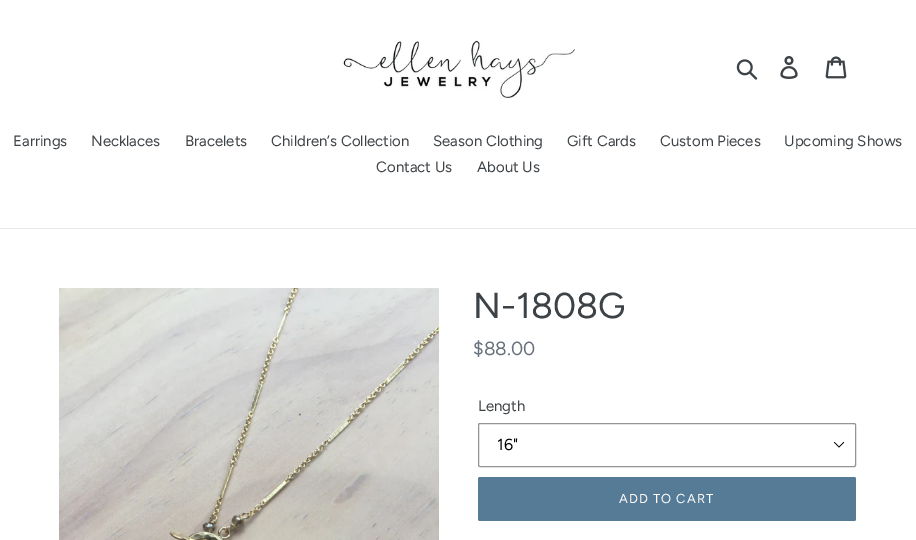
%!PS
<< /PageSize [916 540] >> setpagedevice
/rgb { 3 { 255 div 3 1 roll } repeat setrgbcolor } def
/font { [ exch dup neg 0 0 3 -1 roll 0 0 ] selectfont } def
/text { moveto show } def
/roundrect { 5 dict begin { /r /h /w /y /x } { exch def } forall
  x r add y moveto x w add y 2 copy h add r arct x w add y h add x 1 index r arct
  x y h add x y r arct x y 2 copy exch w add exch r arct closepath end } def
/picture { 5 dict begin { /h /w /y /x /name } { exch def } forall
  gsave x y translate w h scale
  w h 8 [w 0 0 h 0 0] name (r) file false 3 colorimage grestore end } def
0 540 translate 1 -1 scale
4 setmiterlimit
255 255 255 rgb
0 0 916 540 rectfill
(img_01.rgb) 342 40 233 59 picture
(img_02.rgb) 736 59 22 21 picture
(img_03.rgb) 780 56 18 23 picture
(img_04.rgb) 825 56 22 23 picture
232 233 235 rgb
0 228 916 1 rectfill
(img_05.rgb) 59 288 380 252 picture
(img_06.rgb) 833 441 12 7 picture
148 148 148 rgb
478.5 423.5 377 43 1.5 roundrect stroke
85 123 151 rgb
478 477 378 44 2 roundrect fill
/Figtree-Regular 15 font
61 66 70 rgb
(Earrings) 13 146 text
(Necklaces) 91 146 text
(Bracelets) 185 146 text
(Children’s Collection) 271 146 text
(Season Clothing) 433 146 text
(Gift Cards) 567 146 text
(Custom Pieces) 660 146 text
(Upcoming Shows) 784 146 text
(Contact Us) 376 172 text
(About Us) 477 172 text
/Figtree-Regular 36 font
(N-1808G) 473 318 text
/Figtree-Regular 19 font
105 114 123 rgb
($88.00) 473 355 text
/Figtree-Regular 15 font
61 66 70 rgb
(Length) 478 411 text
/Figtree-Regular 16 font
0 0 0 rgb
(16") 497 450 text
/Figtree-Regular 13 font
255 255 255 rgb
619 503 moveto 1 0 (ADD TO CART) ashow
showpage
